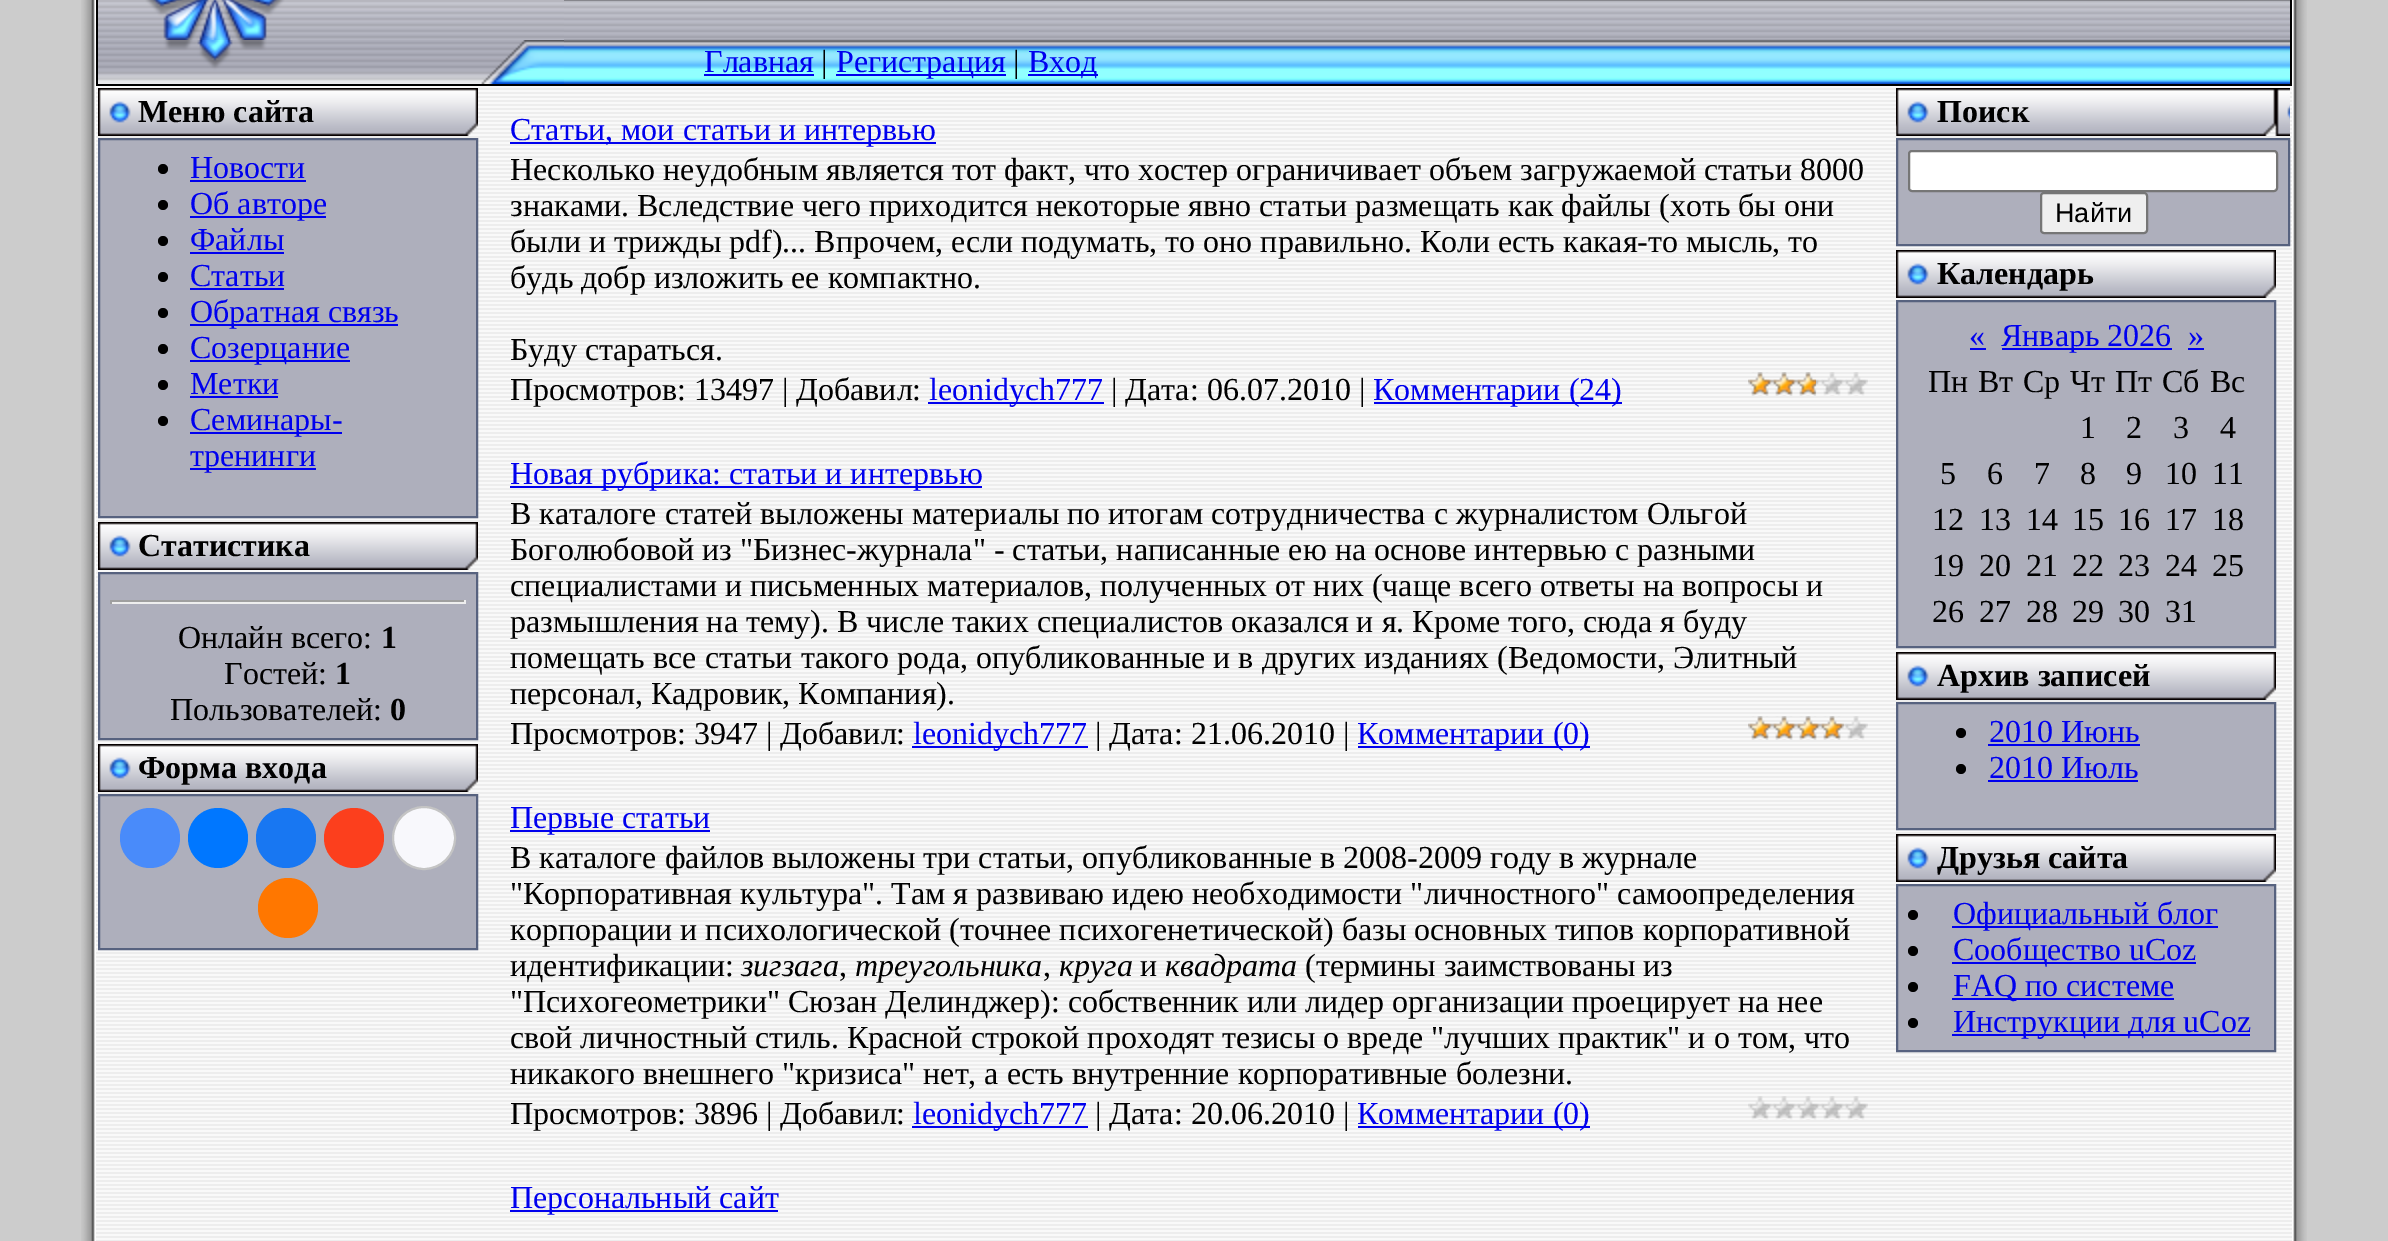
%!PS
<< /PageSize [2388 1241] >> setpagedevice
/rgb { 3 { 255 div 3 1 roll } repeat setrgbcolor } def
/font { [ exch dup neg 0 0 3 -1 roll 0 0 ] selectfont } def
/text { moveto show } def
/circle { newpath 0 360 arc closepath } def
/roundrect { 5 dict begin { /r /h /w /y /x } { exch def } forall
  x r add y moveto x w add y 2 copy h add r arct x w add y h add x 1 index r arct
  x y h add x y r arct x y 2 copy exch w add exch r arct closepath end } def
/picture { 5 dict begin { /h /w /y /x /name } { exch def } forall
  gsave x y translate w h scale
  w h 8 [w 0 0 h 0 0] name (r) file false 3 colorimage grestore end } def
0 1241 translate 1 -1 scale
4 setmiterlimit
204 204 204 rgb
0 0 2388 1241 rectfill
(img_01.rgb) 81 0 15 1241 picture
(img_02.rgb) 564 0 1726 84 picture
0 0 0 rgb
2 setlinewidth
97 -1 2194 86 rectstroke
(img_03.rgb) 98 0 466 40 picture
(img_04.rgb) 98 40 466 44 picture
0 0 238 rgb
704 74 110 2 rectfill
836 74 170 2 rectfill
1028 74 70 2 rectfill
(img_05.rgb) 96 86 2196 1155 picture
(img_06.rgb) 98 88 380 48 picture
174 175 188 rgb
99 139 moveto 378 0 rlineto 0 378 rlineto -378 0 rlineto closepath gsave fill grestore
87 98 127 rgb
stroke
0 0 0 rgb
163 169 5 circle fill
0 0 238 rgb
190 180 116 2 rectfill
0 0 0 rgb
163 205 5 circle fill
0 0 238 rgb
190 216 136 2 rectfill
0 0 0 rgb
163 241 5 circle fill
0 0 238 rgb
190 252 94 2 rectfill
0 0 0 rgb
163 277 5 circle fill
0 0 238 rgb
190 288 94 2 rectfill
0 0 0 rgb
163 313 5 circle fill
0 0 238 rgb
190 324 208 2 rectfill
0 0 0 rgb
163 349 5 circle fill
0 0 238 rgb
190 360 160 2 rectfill
0 0 0 rgb
163 385 5 circle fill
0 0 238 rgb
190 396 88 2 rectfill
0 0 0 rgb
163 421 5 circle fill
0 0 238 rgb
190 432 152 2 rectfill
190 468 126 2 rectfill
(img_07.rgb) 98 522 380 48 picture
174 175 188 rgb
99 573 moveto 378 0 rlineto 0 166 rlineto -378 0 rlineto closepath gsave fill grestore
87 98 127 rgb
stroke
159 159 159 rgb
110 600 356 2 rectfill
238 238 238 rgb
464 600 2 4 rectfill
110 602 356 2 rectfill
159 159 159 rgb
110 600 2 4 rectfill
(img_06.rgb) 98 744 380 48 picture
174 175 188 rgb
99 795 moveto 378 0 rlineto 0 154 rlineto -378 0 rlineto closepath gsave fill grestore
87 98 127 rgb
stroke
73 139 250 rgb
150 838 30 circle fill
0 119 255 rgb
218 838 30 circle fill
24 119 242 rgb
286 838 30 circle fill
252 63 29 rgb
354 838 30 circle fill
248 248 252 rgb
424 838 31 circle gsave fill grestore
196 196 196 rgb
stroke
255 119 0 rgb
288 908 30 circle fill
0 0 238 rgb
510 142 426 2 rectfill
928 402 176 2 rectfill
1374 402 248 2 rectfill
(img_08.rgb) 1748 372 120 24 picture
(img_09.rgb) 1748 372 68 24 picture
510 486 472 2 rectfill
912 746 176 2 rectfill
1358 746 232 2 rectfill
(img_08.rgb) 1748 716 120 24 picture
(img_10.rgb) 1748 716 96 24 picture
510 830 200 2 rectfill
912 1126 176 2 rectfill
1358 1126 232 2 rectfill
(img_08.rgb) 1748 1096 120 24 picture
510 1210 268 2 rectfill
(img_11.rgb) 1896 88 394 48 picture
174 175 188 rgb
1897 139 moveto 392 0 rlineto 0 106 rlineto -392 0 rlineto closepath gsave fill grestore
87 98 127 rgb
stroke
255 255 255 rgb
1909 151 368 40 3 roundrect gsave fill grestore
118 118 118 rgb
stroke
239 239 239 rgb
2041 193 106 40 3 roundrect gsave fill grestore
118 118 118 rgb
stroke
(img_07.rgb) 1896 250 380 48 picture
174 175 188 rgb
1897 301 moveto 378 0 rlineto 0 346 rlineto -378 0 rlineto closepath gsave fill grestore
87 98 127 rgb
stroke
0 0 238 rgb
1970 348 16 2 rectfill
2002 348 170 2 rectfill
2188 348 16 2 rectfill
(img_06.rgb) 1896 652 380 48 picture
174 175 188 rgb
1897 703 moveto 378 0 rlineto 0 126 rlineto -378 0 rlineto closepath gsave fill grestore
87 98 127 rgb
stroke
0 0 0 rgb
1961 733 5 circle fill
0 0 238 rgb
1988 744 152 2 rectfill
0 0 0 rgb
1961 769 5 circle fill
0 0 238 rgb
1988 780 150 2 rectfill
(img_07.rgb) 1896 834 380 48 picture
174 175 188 rgb
1897 885 moveto 378 0 rlineto 0 166 rlineto -378 0 rlineto closepath gsave fill grestore
87 98 127 rgb
stroke
0 0 0 rgb
1913 915 5 circle fill
0 0 238 rgb
1952 926 266 2 rectfill
0 0 0 rgb
1913 951 5 circle fill
0 0 238 rgb
1952 962 244 2 rectfill
0 0 0 rgb
1913 987 5 circle fill
0 0 238 rgb
1952 998 222 2 rectfill
0 0 0 rgb
1913 1023 5 circle fill
0 0 238 rgb
1952 1034 298 2 rectfill
(img_12.rgb) 2292 0 15 1241 picture
/LiberationSerif-Regular 32 font
(Главная) 704 72 text
0 0 0 rgb
(|) 821 72 text
0 0 238 rgb
(Регистрация) 836 72 text
0 0 0 rgb
(|) 1013 72 text
0 0 238 rgb
(Вход) 1028 72 text
/LiberationSerif-Bold 32 font
0 0 0 rgb
(Меню сайта) 138 122 text
/LiberationSerif-Regular 32 font
0 0 238 rgb
(Новости) 190 178 text
(Об авторе) 190 214 text
(Файлы) 190 250 text
(Cтатьи) 190 286 text
(Обратная связь) 190 322 text
(Созерцание) 190 358 text
(Метки) 190 394 text
(Семинары-) 190 430 text
(тренинги) 190 466 text
/LiberationSerif-Bold 32 font
0 0 0 rgb
(Статистика) 138 556 text
/LiberationSerif-Regular 32 font
(Онлайн всего:) 178 648 text
/LiberationSerif-Bold 32 font
(1) 381 648 text
/LiberationSerif-Regular 32 font
(Гостей:) 224 684 text
/LiberationSerif-Bold 32 font
(1) 335 684 text
/LiberationSerif-Regular 32 font
(Пользователей:) 170 720 text
/LiberationSerif-Bold 32 font
(0) 390 720 text
(Форма входа) 138 778 text
/LiberationSerif-Regular 32 font
0 0 238 rgb
(Статьи, мои статьи и интервью) 510 140 text
0 0 0 rgb
(Несколько неудобным является тот факт, что хостер ограничивает объем загружаемой статьи 8000) 510 180 text
(знаками. Вследствие чего приходится некоторые явно статьи размещать как файлы \(хоть бы они) 510 216 text
(были и трижды pdf\)... Впрочем, если подумать, то оно правильно. Коли есть какая-то мысль, то) 510 252 text
(будь добр изложить ее компактно.) 510 288 text
(Буду стараться.) 510 360 text
(Просмотров: 13497 | Добавил:) 510 400 text
0 0 238 rgb
(leonidych777) 929 400 text
0 0 0 rgb
(| Дата: 06.07.2010 |) 1111 400 text
0 0 238 rgb
(Комментарии \(24\)) 1373 400 text
(Новая рубрика: статьи и интервью) 510 484 text
0 0 0 rgb
(В каталоге статей выложены материалы по итогам сотрудничества с журналистом Ольгой) 510 524 text
(Боголюбовой из "Бизнес-журнала" - статьи, написанные ею на основе интервью с разными) 510 560 text
(специалистами и письменных материалов, полученных от них \(чаще всего ответы на вопросы и) 510 596 text
(размышления на тему\). В числе таких специалистов оказался и я. Кроме того, сюда я буду) 510 632 text
(помещать все статьи такого рода, опубликованные и в других изданиях \(Ведомости, Элитный) 510 668 text
(персонал, Кадровик, Компания\).) 510 704 text
(Просмотров: 3947 | Добавил:) 510 744 text
0 0 238 rgb
(leonidych777) 913 744 text
0 0 0 rgb
(| Дата: 21.06.2010 |) 1095 744 text
0 0 238 rgb
(Комментарии \(0\)) 1357 744 text
(Первые статьи) 510 828 text
0 0 0 rgb
(В каталоге файлов выложены три статьи, опубликованные в 2008-2009 году в журнале) 510 868 text
("Корпоративная культура". Там я развиваю идею необходимости "личностного" самоопределения) 510 904 text
(корпорации и психологической \(точнее психогенетической\) базы основных типов корпоративной) 510 940 text
(идентификации:) 510 976 text
/LiberationSerif-Italic 32 font
(зигзага) 741 976 text
/LiberationSerif-Regular 32 font
(,) 839 976 text
/LiberationSerif-Italic 32 font
(треугольника) 855 976 text
/LiberationSerif-Regular 32 font
(,) 1043 976 text
/LiberationSerif-Italic 32 font
(круга) 1059 976 text
/LiberationSerif-Regular 32 font
(и) 1140 976 text
/LiberationSerif-Italic 32 font
(квадрата) 1165 976 text
/LiberationSerif-Regular 32 font
(\(термины заимствованы из) 1305 976 text
("Психогеометрики" Сюзан Делинджер\): собственник или лидер организации проецирует на нее) 510 1012 text
(свой личностный стиль. Красной строкой проходят тезисы о вреде "лучших практик" и о том, что) 510 1048 text
(никакого внешнего "кризиса" нет, а есть внутренние корпоративные болезни.) 510 1084 text
(Просмотров: 3896 | Добавил:) 510 1124 text
0 0 238 rgb
(leonidych777) 913 1124 text
0 0 0 rgb
(| Дата: 20.06.2010 |) 1095 1124 text
0 0 238 rgb
(Комментарии \(0\)) 1357 1124 text
(Персональный сайт) 510 1208 text
/LiberationSerif-Bold 32 font
0 0 0 rgb
(Поиск) 1937 122 text
/LiberationSans-Regular 27 font
(Найти) 2055 222 text
/LiberationSerif-Bold 32 font
(Календарь) 1937 284 text
/LiberationSerif-Regular 32 font
0 0 238 rgb
(«) 1969 346 text
(Январь 2026) 2001 346 text
(») 2188 346 text
0 0 0 rgb
(Пн) 1928 392 text
(Вт) 1978 392 text
(Ср) 2023 392 text
(Чт) 2070 392 text
(Пт) 2115 392 text
(Сб) 2162 392 text
(Вс) 2210 392 text
(1) 2080 438 text
(2) 2126 438 text
(3) 2173 438 text
(4) 2220 438 text
(5) 1940 484 text
(6) 1987 484 text
(7) 2034 484 text
(8) 2080 484 text
(9) 2126 484 text
(10) 2165 484 text
(11) 2212 484 text
(12) 1932 530 text
(13) 1979 530 text
(14) 2026 530 text
(15) 2072 530 text
(16) 2118 530 text
(17) 2165 530 text
(18) 2212 530 text
(19) 1932 576 text
(20) 1979 576 text
(21) 2026 576 text
(22) 2072 576 text
(23) 2118 576 text
(24) 2165 576 text
(25) 2212 576 text
(26) 1932 622 text
(27) 1979 622 text
(28) 2026 622 text
(29) 2072 622 text
(30) 2118 622 text
(31) 2165 622 text
/LiberationSerif-Bold 32 font
(Архив записей) 1937 686 text
/LiberationSerif-Regular 32 font
0 0 238 rgb
(2010 Июнь) 1989 742 text
(2010 Июль) 1989 778 text
/LiberationSerif-Bold 32 font
0 0 0 rgb
(Друзья сайта) 1937 868 text
/LiberationSerif-Regular 32 font
0 0 238 rgb
(Официальный блог) 1953 924 text
(Сообщество uCoz) 1953 960 text
(FAQ по системе) 1953 996 text
(Инструкции для uCoz) 1953 1032 text
showpage
